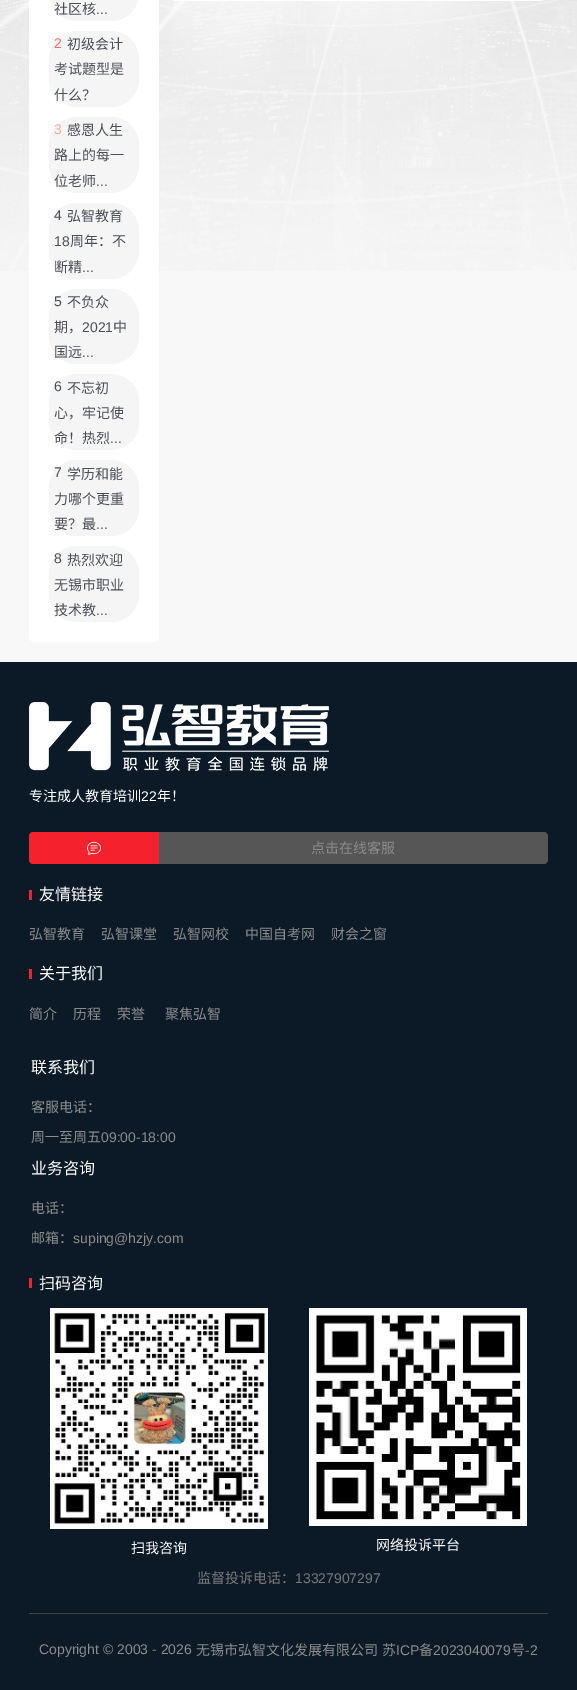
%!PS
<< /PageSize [577 1690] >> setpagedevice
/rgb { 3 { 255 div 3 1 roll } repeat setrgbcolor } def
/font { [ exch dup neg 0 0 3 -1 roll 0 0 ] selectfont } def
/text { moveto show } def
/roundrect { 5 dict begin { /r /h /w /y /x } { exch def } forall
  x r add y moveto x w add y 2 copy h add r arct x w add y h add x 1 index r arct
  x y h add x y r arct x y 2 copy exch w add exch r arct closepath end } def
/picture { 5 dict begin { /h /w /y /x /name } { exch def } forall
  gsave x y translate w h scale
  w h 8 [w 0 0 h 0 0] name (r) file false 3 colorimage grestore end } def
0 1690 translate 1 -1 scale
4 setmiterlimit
248 248 248 rgb
0 0 577 1690 rectfill
(img_01.rgb) 0 0 577 271 picture
255 255 255 rgb
169 -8 379 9 8 roundrect fill
29 -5 130 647 5 roundrect fill
245 245 245 rgb
49 -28 90 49 28 roundrect fill
49 31 90 76 28 roundrect fill
49 117 90 76 28 roundrect fill
49 203 90 76 28 roundrect fill
49 289 90 75 28 roundrect fill
49 374 90 76 28 roundrect fill
49 460 90 76 28 roundrect fill
49 546 90 76 28 roundrect fill
12 26 40 rgb
0 662 577 1028 rectfill
(img_02.rgb) 29 702 300 69 picture
245 34 45 rgb
33 832 moveto 126 0 rlineto 0 32 rlineto -126 0 rlineto -2 0 -4 -2 -4 -4 rcurveto 0 -24 rlineto 0 -2 2 -4 4 -4 rcurveto closepath fill
(img_03.rgb) 87 841 14 14 picture
86 86 86 rgb
159 832 moveto 385 0 rlineto 2 0 4 2 4 4 rcurveto 0 24 rlineto 0 2 -2 4 -4 4 rcurveto -385 0 rlineto closepath fill
245 34 45 rgb
29 890 3 10 rectfill
29 969 3 10 rectfill
29 1278 3 10 rectfill
(img_04.rgb) 50 1308 218 221 picture
(img_05.rgb) 309 1308 218 218 picture
67 67 67 rgb
29 1613 519 1 rectfill
/NotoSansCJKSC-Regular 14 font
74 78 87 rgb
(社区核) 54 14 text
/LiberationSans-Regular 14 font
(...) 96 14 text
255 107 107 rgb
(2) 54 48 text
/NotoSansCJKSC-Regular 14 font
74 78 87 rgb
(初级会计) 67 49 text
(考试题型是) 54 74 text
(什么？) 54 100 text
/LiberationSans-Regular 14 font
255 166 166 rgb
(3) 54 134 text
/NotoSansCJKSC-Regular 14 font
74 78 87 rgb
(感恩人生) 67 135 text
(路上的每一) 54 160 text
(位老师) 54 186 text
/LiberationSans-Regular 14 font
(...) 96 186 text
(4) 54 220 text
/NotoSansCJKSC-Regular 14 font
(弘智教育) 67 221 text
/LiberationSans-Regular 14 font
(18) 54 246 text
/NotoSansCJKSC-Regular 14 font
(周年：不) 70 246 text
(断精) 54 272 text
/LiberationSans-Regular 14 font
(...) 82 272 text
(5) 54 306 text
/NotoSansCJKSC-Regular 14 font
(不负众) 67 307 text
(期，) 54 332 text
/LiberationSans-Regular 14 font
(2021) 82 332 text
/NotoSansCJKSC-Regular 14 font
(中) 113 332 text
(国远) 54 357 text
/LiberationSans-Regular 14 font
(...) 82 357 text
(6) 54 391 text
/NotoSansCJKSC-Regular 14 font
(不忘初) 67 393 text
(心，牢记使) 54 418 text
(命！热烈) 54 443 text
/LiberationSans-Regular 14 font
(...) 110 443 text
(7) 54 477 text
/NotoSansCJKSC-Regular 14 font
(学历和能) 67 479 text
(力哪个更重) 54 504 text
(要？最) 54 529 text
/LiberationSans-Regular 14 font
(...) 96 529 text
(8) 54 563 text
/NotoSansCJKSC-Regular 14 font
(热烈欢迎) 67 565 text
(无锡市职业) 54 590 text
(技术教) 54 615 text
/LiberationSans-Regular 14 font
(...) 96 615 text
/NotoSansCJKSC-Regular 14 font
255 255 255 rgb
(专注成人教育培训) 29 801 text
/LiberationSans-Regular 14 font
(22) 141 801 text
/NotoSansCJKSC-Regular 14 font
(年！) 157 801 text
140 140 140 rgb
(点击在线客服) 311 853 text
/NotoSansCJKSC-Regular 16 font
255 255 255 rgb
(友情链接) 39 900 text
/NotoSansCJKSC-Regular 14 font
140 140 140 rgb
(弘智教育) 29 939 text
(弘智课堂) 101 939 text
(弘智网校) 173 939 text
(中国自考网) 245 939 text
(财会之窗) 331 939 text
/NotoSansCJKSC-Regular 16 font
255 255 255 rgb
(关于我们) 39 979 text
/NotoSansCJKSC-Regular 14 font
140 140 140 rgb
(简介) 29 1019 text
(历程) 73 1019 text
(荣誉) 117 1019 text
(聚焦弘智) 165 1019 text
/NotoSansCJKSC-Regular 16 font
255 255 255 rgb
(联系我们) 31 1073 text
/NotoSansCJKSC-Regular 14 font
140 140 140 rgb
(客服电话：) 31 1112 text
(周一至周五) 31 1142 text
/LiberationSans-Regular 14 font
(09:00-18:00) 101 1142 text
/NotoSansCJKSC-Regular 16 font
255 255 255 rgb
(业务咨询) 31 1174 text
/NotoSansCJKSC-Regular 14 font
140 140 140 rgb
(电话：) 31 1213 text
(邮箱：) 31 1243 text
/LiberationSans-Regular 14 font
(suping@hzjy.com) 73 1243 text
/NotoSansCJKSC-Regular 16 font
255 255 255 rgb
(扫码咨询) 39 1289 text
/NotoSansCJKSC-Regular 14 font
(扫我咨询) 131 1553 text
(网络投诉平台) 376 1550 text
120 120 120 rgb
(监督投诉电话：) 197 1583 text
/LiberationSans-Regular 14 font
(13327907297) 295 1583 text
140 140 140 rgb
(Copyright © 2003 - 2026) 39 1654 text
/NotoSansCJKSC-Regular 14 font
(无锡市弘智文化发展有限公司) 196 1655 text
(苏) 382 1655 text
/LiberationSans-Regular 14 font
(ICP) 396 1655 text
/NotoSansCJKSC-Regular 14 font
(备) 419 1655 text
/LiberationSans-Regular 14 font
(2023040079) 433 1655 text
/NotoSansCJKSC-Regular 14 font
(号) 511 1655 text
/LiberationSans-Regular 14 font
(-2) 525 1655 text
showpage
